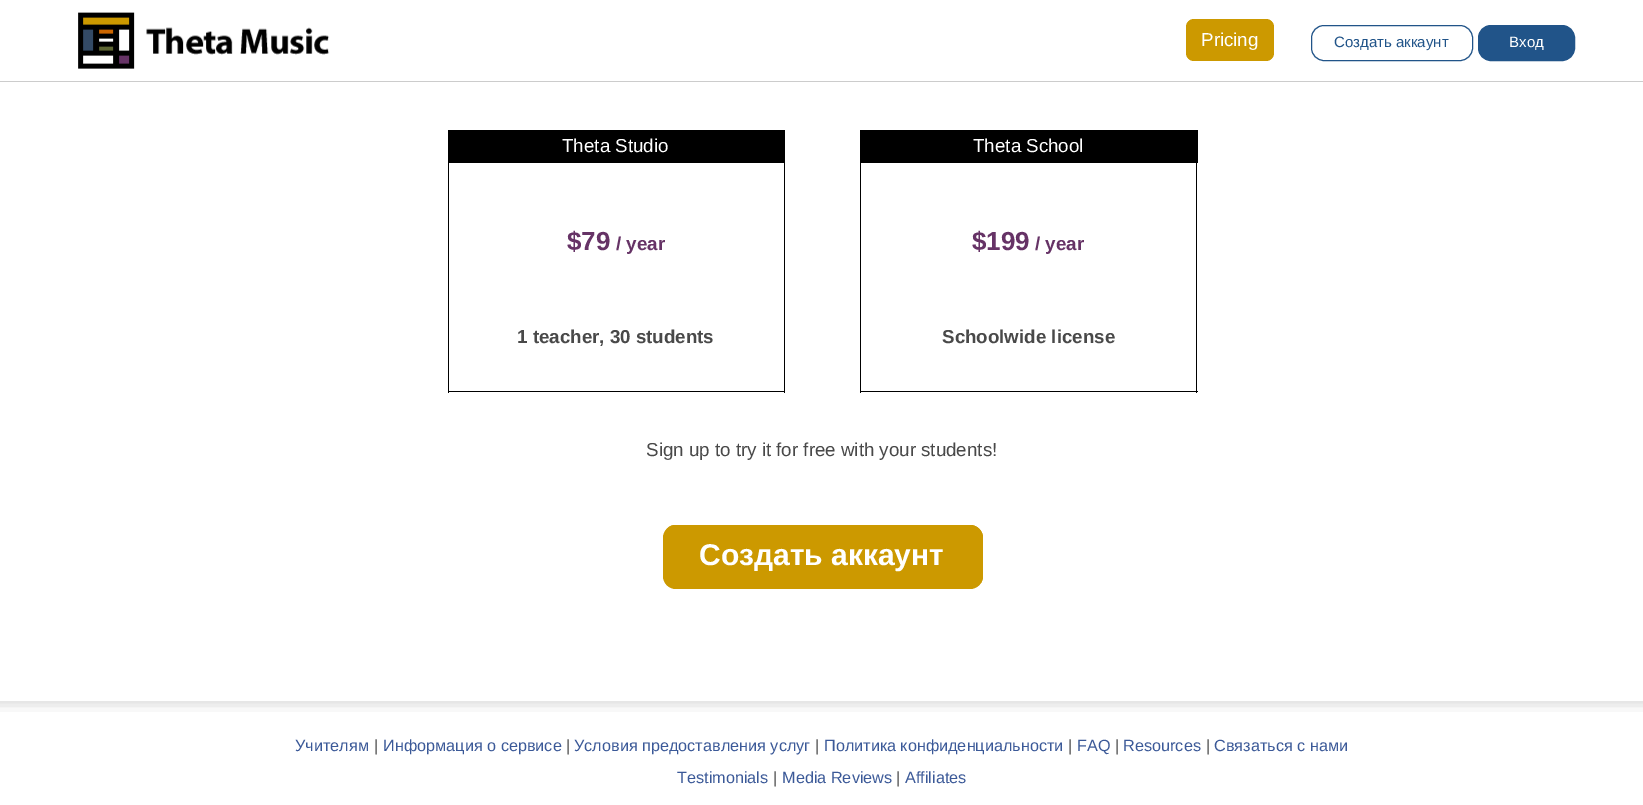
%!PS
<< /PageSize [1643 805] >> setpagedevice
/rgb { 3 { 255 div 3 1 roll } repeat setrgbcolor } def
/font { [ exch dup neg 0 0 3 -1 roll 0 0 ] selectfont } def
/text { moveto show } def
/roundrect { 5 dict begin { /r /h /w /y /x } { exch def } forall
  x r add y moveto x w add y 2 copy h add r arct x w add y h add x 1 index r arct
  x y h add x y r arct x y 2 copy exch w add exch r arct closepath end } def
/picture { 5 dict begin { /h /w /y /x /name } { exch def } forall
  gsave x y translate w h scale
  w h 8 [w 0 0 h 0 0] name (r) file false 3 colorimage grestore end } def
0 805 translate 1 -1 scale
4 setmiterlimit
255 255 255 rgb
0 0 1643 805 rectfill
204 204 204 rgb
0 81 1643 1 rectfill
(img_01.rgb) 78 12 252 57 picture
204 153 0 rgb
1186 19 88 42 8 roundrect fill
33 84 137 rgb
1311.5 25.5 161 35 12.5 roundrect stroke
1478.5 25.5 96 35 12.5 roundrect gsave fill grestore
stroke
0 0 0 rgb
448 130 337 33 rectfill
784 163 1 230 rectfill
448 391 337 1 rectfill
448 163 1 230 rectfill
860 130 338 33 rectfill
1196 163 1 230 rectfill
860 391 338 1 rectfill
860 163 1 230 rectfill
204 153 0 rgb
663 525 320 64 13 roundrect fill
674 526 moveto 296 0 rlineto 7 0 12 6 12 12 rcurveto 0 40 rlineto -1 5 rlineto 1 -2 2 -5 2 -7 rcurveto 0 -38 rlineto 0 -7 -6 -13 -13 -13 rcurveto -294 0 rlineto -4 0 -7 1 -9 4 rcurveto 2 -2 4 -3 7 -3 rcurveto closepath fill
(img_02.rgb) 0 701 1643 11 picture
/LiberationSans-Regular 18.75 font
255 255 255 rgb
(Pricing) 1201 46 text
/LiberationSans-Regular 15 font
33 84 137 rgb
(Создать аккаунт) 1334 47 text
255 255 255 rgb
(Вход) 1509 47 text
/LiberationSans-Regular 18.75 font
(Theta Studio) 562 152 text
/LiberationSans-Bold 26 font
102 51 102 rgb
($79) 567 250 text
/LiberationSans-Bold 18.75 font
(/ year) 616 250 text
73 73 73 rgb
(1 teacher, 30 students) 517 343 text
/LiberationSans-Regular 18.75 font
255 255 255 rgb
(Theta School) 973 152 text
/LiberationSans-Bold 26 font
102 51 102 rgb
($199) 972 250 text
/LiberationSans-Bold 18.75 font
(/ year) 1035 250 text
73 73 73 rgb
(Schoolwide license) 942 343 text
/LiberationSans-Regular 18.75 font
(Sign up to try it for free with your students!) 646 456 text
/LiberationSans-Bold 30 font
255 255 255 rgb
(Создать аккаунт) 699 565 text
/LiberationSans-Regular 16.25 font
59 89 152 rgb
(Учителям) 295 751 text
73 73 73 rgb
(|) 374 751 text
59 89 152 rgb
(Информация о сервисе) 383 751 text
73 73 73 rgb
(|) 566 751 text
59 89 152 rgb
(Условия предоставления услуг) 574 751 text
73 73 73 rgb
(|) 815 751 text
59 89 152 rgb
(Политика конфиденциальности) 824 751 text
73 73 73 rgb
(|) 1068 751 text
59 89 152 rgb
(FAQ) 1077 751 text
73 73 73 rgb
(|) 1115 751 text
59 89 152 rgb
(Resources) 1123 751 text
73 73 73 rgb
(|) 1206 751 text
59 89 152 rgb
(Связаться с нами) 1214 751 text
(Testimonials) 677 783 text
73 73 73 rgb
(|) 773 783 text
59 89 152 rgb
(Media Reviews) 782 783 text
73 73 73 rgb
(|) 896 783 text
59 89 152 rgb
(Affiliates) 905 783 text
showpage
